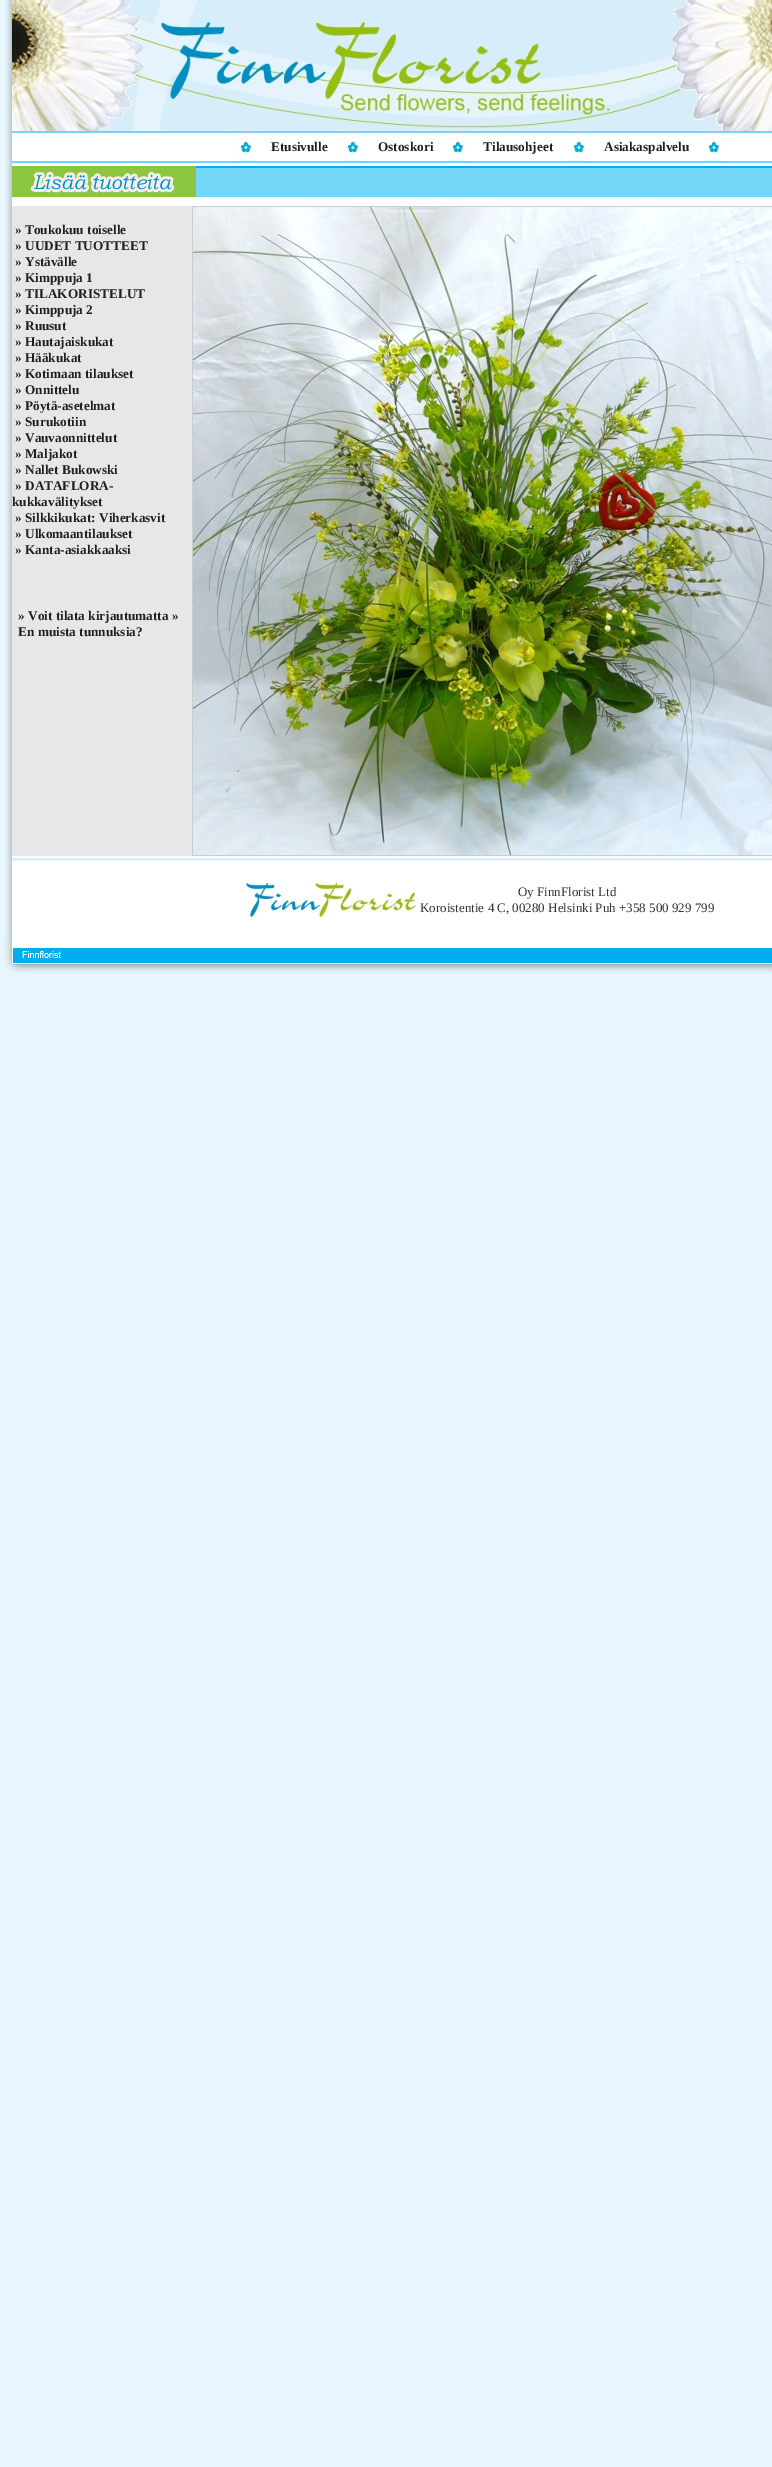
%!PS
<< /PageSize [772 2467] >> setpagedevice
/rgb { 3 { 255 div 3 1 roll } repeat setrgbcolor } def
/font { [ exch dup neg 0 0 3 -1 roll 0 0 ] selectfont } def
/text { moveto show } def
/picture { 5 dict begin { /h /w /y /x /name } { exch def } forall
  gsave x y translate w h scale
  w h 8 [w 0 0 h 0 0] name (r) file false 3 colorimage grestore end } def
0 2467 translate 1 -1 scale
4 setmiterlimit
232 247 254 rgb
0 0 772 2467 rectfill
(img_01.rgb) 5 0 7 935 picture
(img_02.rgb) 12 0 760 131 picture
(img_03.rgb) 12 131 760 32 picture
(img_04.rgb) 236 132 20 30 picture
(img_04.rgb) 343 132 20 30 picture
(img_04.rgb) 448 132 20 30 picture
(img_04.rgb) 569 132 20 30 picture
(img_04.rgb) 704 132 20 30 picture
255 255 255 rgb
12 163 760 3 rectfill
(img_05.rgb) 12 166 760 40 picture
231 231 233 rgb
12 206 180 650 rectfill
204 204 204 rgb
192 206 580 1 rectfill
192 855 580 1 rectfill
192 206 1 650 rectfill
(img_06.rgb) 193 207 579 648 picture
255 255 255 rgb
12 856 760 79 rectfill
(img_07.rgb) 12 858 760 4 picture
(img_08.rgb) 246 883 170 34 picture
(img_09.rgb) 2 935 770 39 picture
/LiberationSerif-Bold 13.25 font
31 31 31 rgb
(Etusivulle) 271 151 text
(Ostoskori) 378 151 text
(Tilausohjeet) 483 151 text
(Asiakaspalvelu) 604 151 text
255 255 255 rgb
689 150 1 1 rectfill
31 31 31 rgb
(» Toukokuu toiselle) 15 234 text
(» UUDET TUOTTEET) 15 250 text
(» Ystävälle) 15 266 text
(» Kimppuja 1) 15 282 text
(» TILAKORISTELUT) 15 298 text
(» Kimppuja 2) 15 314 text
(» Ruusut) 15 330 text
(» Hautajaiskukat) 15 346 text
(» Hääkukat) 15 362 text
(» Kotimaan tilaukset) 15 378 text
(» Onnittelu) 15 394 text
(» Pöytä-asetelmat) 15 410 text
(» Surukotiin) 15 426 text
(» Vauvaonnittelut) 15 442 text
(» Maljakot) 15 458 text
(» Nallet Bukowski) 15 474 text
(» DATAFLORA-) 15 490 text
(kukkavälitykset) 12 506 text
(» Silkkikukat: Viherkasvit) 15 522 text
(» Ulkomaantilaukset) 15 538 text
(» Kanta-asiakkaaksi) 15 554 text
(» Voit tilata kirjautumatta ») 18 620 text
(En muista tunnuksia?) 18 636 text
/LiberationSerif-Regular 13 font
51 51 51 rgb
(Oy FinnFlorist Ltd) 518 896 text
(Koroistentie 4 C, 00280 Helsinki Puh +358 500 929 799) 420 912 text
showpage
